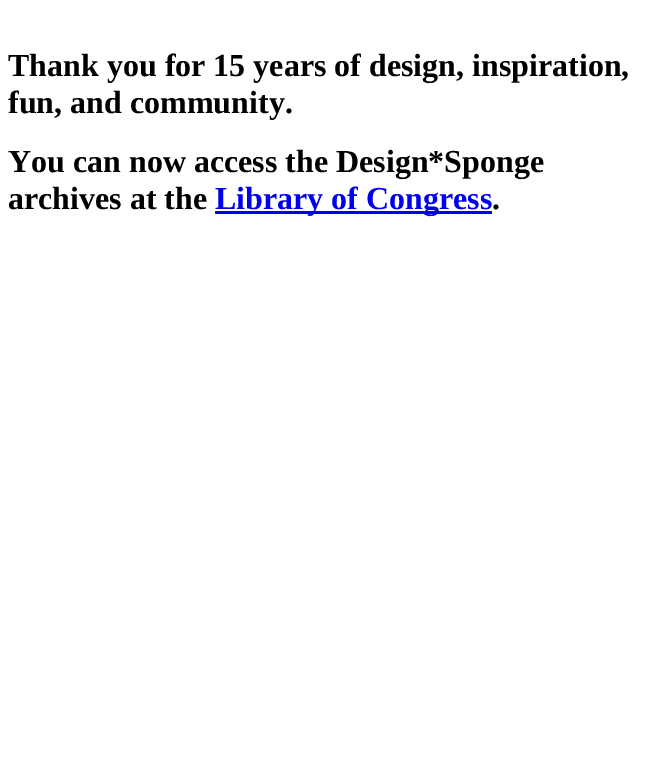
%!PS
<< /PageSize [652 769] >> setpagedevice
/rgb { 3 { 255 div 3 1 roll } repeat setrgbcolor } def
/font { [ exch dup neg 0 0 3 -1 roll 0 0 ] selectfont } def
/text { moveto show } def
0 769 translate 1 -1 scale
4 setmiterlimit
255 255 255 rgb
0 0 652 769 rectfill
0 0 238 rgb
215 211 277 3 rectfill
/LiberationSerif-Bold 32 font
0 0 0 rgb
(Thank you for 15 years of design, inspiration,) 8 76 text
(fun, and community.) 8 113 text
(You can now access the Design*Sponge) 8 172 text
(archives at the) 8 209 text
0 0 238 rgb
(Library of Congress) 215 209 text
0 0 0 rgb
(.) 492 209 text
showpage
